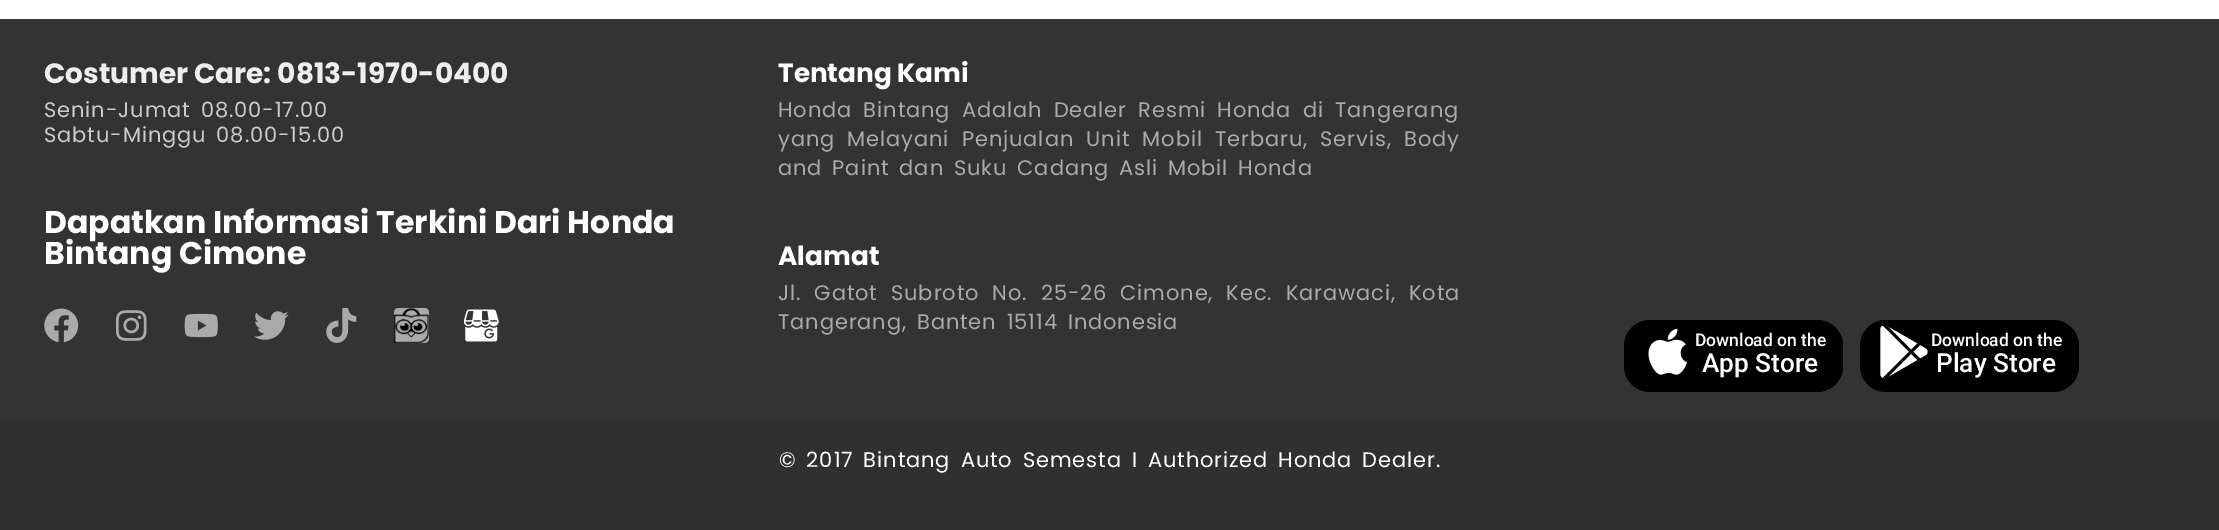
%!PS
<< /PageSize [2219 530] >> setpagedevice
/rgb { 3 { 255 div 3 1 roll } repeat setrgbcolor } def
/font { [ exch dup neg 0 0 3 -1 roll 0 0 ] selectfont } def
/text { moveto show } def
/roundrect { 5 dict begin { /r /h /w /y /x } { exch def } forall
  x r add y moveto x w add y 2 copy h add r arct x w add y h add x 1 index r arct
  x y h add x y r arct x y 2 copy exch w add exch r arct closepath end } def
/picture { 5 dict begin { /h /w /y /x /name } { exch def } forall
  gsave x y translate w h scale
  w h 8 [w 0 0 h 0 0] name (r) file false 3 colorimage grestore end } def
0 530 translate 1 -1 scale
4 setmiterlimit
255 255 255 rgb
0 0 2219 530 rectfill
51 51 51 rgb
0 19 2219 399 rectfill
(img_01.rgb) 44 308 35 35 picture
(img_02.rgb) 115 310 32 31 picture
(img_03.rgb) 184 313 34 25 picture
(img_04.rgb) 254 311 35 29 picture
(img_05.rgb) 326 308 31 35 picture
170 170 170 rgb
394 308 35 35 4 roundrect fill
(img_06.rgb) 394 308 35 35 picture
(img_07.rgb) 464 309 35 33 picture
0 0 0 rgb
1624 320 219 72 26 roundrect fill
(img_08.rgb) 1648 328 39 47 picture
1860 320 219 72 26 roundrect fill
(img_09.rgb) 1880 326 48 52 picture
48 48 48 rgb
0 418 2219 112 rectfill
/Poppins-Bold 28 font
238 238 238 rgb
(Costumer Care: 0813-1970-0400) 44 83 text
/Poppins-Regular 21 font
204 204 204 rgb
44 117 moveto 3.5 0 32 0.88 0 (Senin-Jumat 08.00-17.00) awidthshow
44 142 moveto 3.5 0 32 0.88 0 (Sabtu-Minggu 08.00-15.00) awidthshow
/Poppins-Bold 31.5 font
255 255 255 rgb
(Dapatkan Informasi Terkini Dari Honda) 44 233 text
(Bintang Cimone) 44 264 text
/Poppins-Bold 26.25 font
(Tentang Kami) 778 82 text
/Poppins-Regular 21 font
170 170 170 rgb
778 117 moveto 4.75 0 32 0.88 0 (Honda Bintang Adalah Dealer Resmi Honda di Tangerang) awidthshow
778 146 moveto 5.75 0 32 0.88 0 (yang Melayani Penjualan Unit Mobil Terbaru, Servis, Body) awidthshow
778 175 moveto 3.5 0 32 0.88 0 (and Paint dan Suku Cadang Asli Mobil Honda) awidthshow
/Poppins-Bold 26.25 font
255 255 255 rgb
(Alamat) 778 265 text
/Poppins-Regular 21 font
170 170 170 rgb
778 300 moveto 6.5 0 32 0.88 0 (Jl. Gatot Subroto No. 25-26 Cimone, Kec. Karawaci, Kota) awidthshow
778 329 moveto 3.5 0 32 0.88 0 (Tangerang, Banten 15114 Indonesia) awidthshow
/Roboto-Medium 17.5 font
255 255 255 rgb
(Download on the) 1695 346 text
/Roboto-Medium 26.25 font
(App Store) 1702 372 text
/Roboto-Medium 17.5 font
(Download on the) 1931 346 text
/Roboto-Medium 26.25 font
(Play Store) 1936 372 text
/Poppins-Regular 21 font
779 467 moveto 3.5 0 32 0.88 0 (© 2017 Bintang Auto Semesta I Authorized Honda Dealer.) awidthshow
showpage
